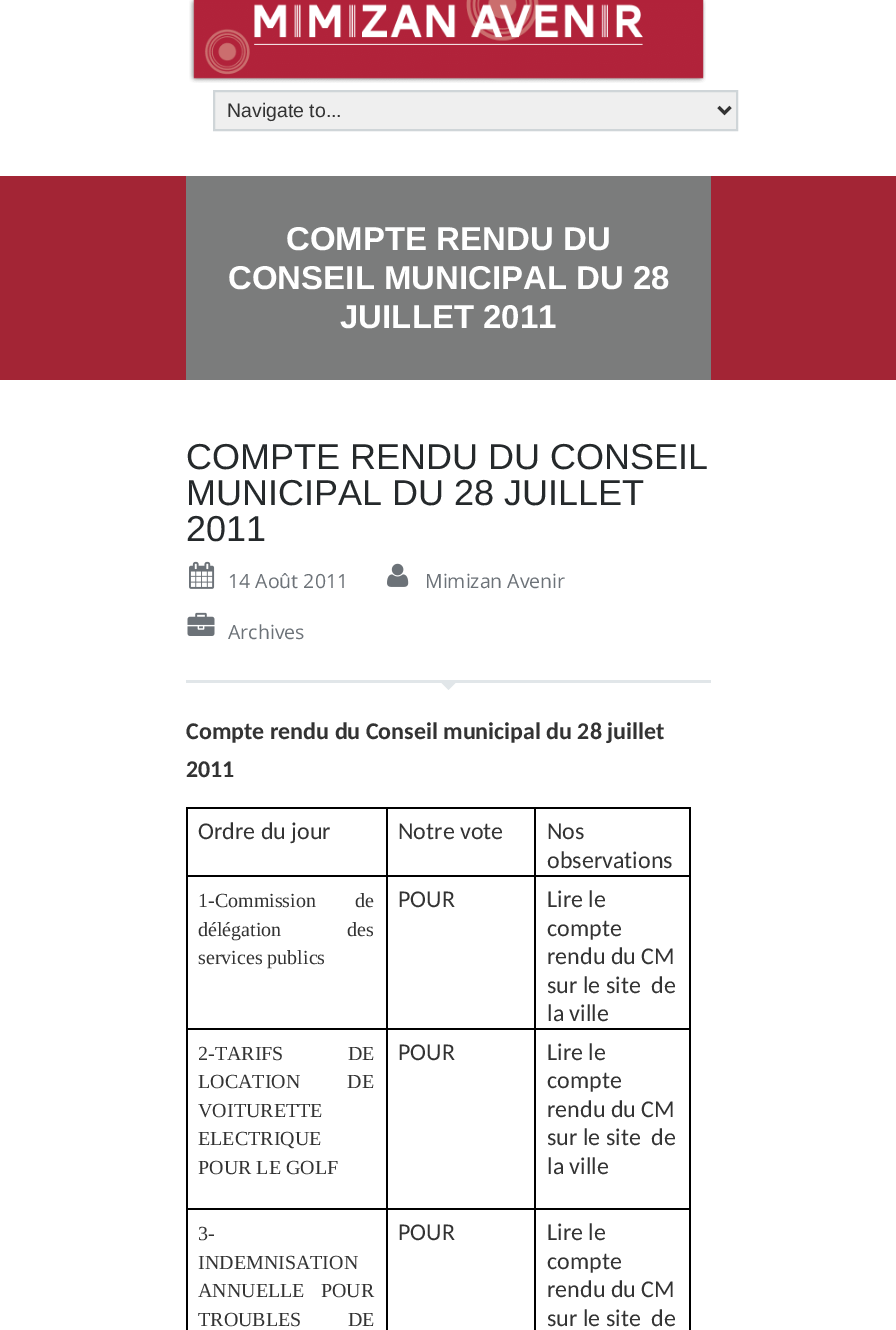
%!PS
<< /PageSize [896 1330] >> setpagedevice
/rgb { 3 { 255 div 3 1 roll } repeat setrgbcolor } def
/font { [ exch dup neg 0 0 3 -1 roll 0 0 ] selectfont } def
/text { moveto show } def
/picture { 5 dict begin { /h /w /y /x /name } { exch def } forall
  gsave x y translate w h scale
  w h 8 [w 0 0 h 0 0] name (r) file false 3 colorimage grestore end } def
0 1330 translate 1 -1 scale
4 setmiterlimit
255 255 255 rgb
0 0 896 1330 rectfill
(img_01.rgb) 189 0 517 83 picture
239 239 239 rgb
214 91 moveto 523 0 rlineto 0 39 rlineto -523 0 rlineto closepath gsave fill grestore
207 213 216 rgb
2 setlinewidth
stroke
51 51 51 rgb
3 setlinewidth
718.5 107 moveto 6 6 rlineto 6 -6 rlineto stroke
163 37 53 rgb
0 176 896 204 rectfill
123 124 124 rgb
186 176 525 204 rectfill
(img_02.rgb) 189 561 26 28 picture
(img_03.rgb) 387 563 22 24 picture
(img_04.rgb) 187 612 28 24 picture
225 230 233 rgb
186 680 525 3 rectfill
439.5 681 moveto 18 0 rlineto -9 9 rlineto closepath fill
0 0 0 rgb
186 807 504 2 rectfill
689 875 2 455 rectfill
689 807 2 69 rectfill
534 1208 2 122 rectfill
534 1208 156 2 rectfill
534 1028 2 181 rectfill
534 1028 156 2 rectfill
534 875 2 154 rectfill
534 875 156 2 rectfill
534 807 2 69 rectfill
386 1208 2 122 rectfill
386 1208 150 2 rectfill
386 1028 2 181 rectfill
386 1028 150 2 rectfill
386 875 2 154 rectfill
386 875 150 2 rectfill
386 807 2 69 rectfill
186 1208 2 122 rectfill
186 1208 201 2 rectfill
186 1028 2 181 rectfill
186 1028 201 2 rectfill
186 875 2 154 rectfill
186 875 201 2 rectfill
186 807 2 69 rectfill
/LiberationSans-Regular 19.5 font
51 51 51 rgb
(Navigate to...) 227 117 text
/LiberationSans-Bold 33 font
255 255 255 rgb
(COMPTE RENDU DU) 286 250 text
(CONSEIL MUNICIPAL DU 28) 228 289 text
(JUILLET 2011) 340 328 text
/LiberationSans-Regular 36 font
37 41 43 rgb
(COMPTE RENDU DU CONSEIL) 186 469 text
(MUNICIPAL DU 28 JUILLET) 186 505 text
(2011) 186 541 text
/OpenSans-Regular 19.5 font
108 114 120 rgb
(14 Août 2011) 228 588 text
(Mimizan Avenir) 425 588 text
(Archives) 228 639 text
/Carlito-Bold 24 font
51 51 51 rgb
(Compte rendu du Conseil municipal du 28 juillet) 186 739 text
(2011) 186 777 text
/Carlito-Regular 24 font
(Ordre du jour) 198 839 text
(Notre vote) 398 839 text
(Nos) 547 839 text
(observations) 547 868 text
/LiberationSerif-Regular 20 font
198 907 moveto 34 0 32 (1-Commission de) widthshow
198 936 moveto 61 0 32 (délégation des) widthshow
(services publics) 198 964 text
/Carlito-Regular 24 font
(POUR) 398 907 text
(Lire le) 547 907 text
(compte) 547 936 text
(rendu du CM) 547 964 text
(sur le site  de) 547 993 text
(la ville) 547 1021 text
/LiberationSerif-Regular 20 font
198 1060 moveto 59 0 32 (2-TARIFS DE) widthshow
198 1088 moveto 42 0 32 (LOCATION DE) widthshow
(VOITURETTE) 198 1117 text
(ELECTRIQUE) 198 1145 text
(POUR LE GOLF) 198 1174 text
/Carlito-Regular 24 font
(POUR) 398 1060 text
(Lire le) 547 1060 text
(compte) 547 1088 text
(rendu du CM) 547 1117 text
(sur le site  de) 547 1145 text
(la ville) 547 1174 text
/LiberationSerif-Regular 20 font
(3-) 198 1240 text
(INDEMNISATION) 198 1269 text
198 1297 moveto 11 0 32 (ANNUELLE POUR) widthshow
(TROUBLES) 198 1326 text
(DE) 348 1326 text
/Carlito-Regular 24 font
(POUR) 398 1240 text
(Lire le) 547 1240 text
(compte) 547 1269 text
(rendu du CM) 547 1297 text
(sur le site  de) 547 1326 text
showpage
